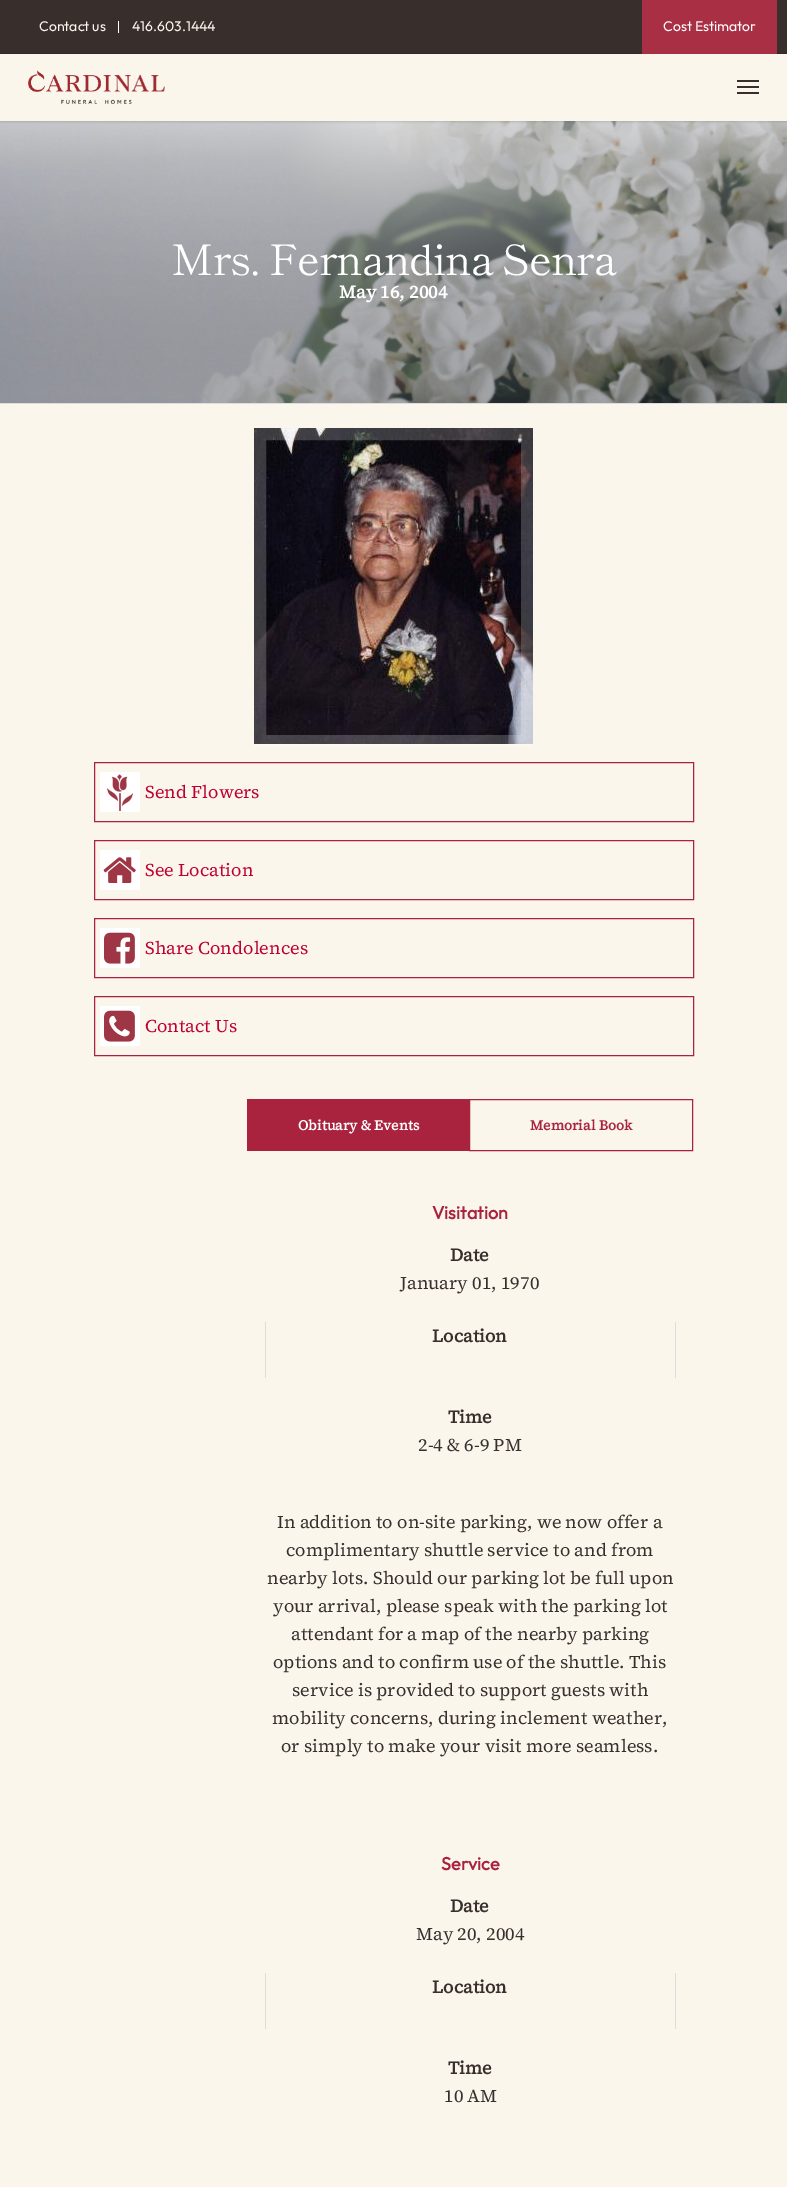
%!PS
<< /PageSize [787 2187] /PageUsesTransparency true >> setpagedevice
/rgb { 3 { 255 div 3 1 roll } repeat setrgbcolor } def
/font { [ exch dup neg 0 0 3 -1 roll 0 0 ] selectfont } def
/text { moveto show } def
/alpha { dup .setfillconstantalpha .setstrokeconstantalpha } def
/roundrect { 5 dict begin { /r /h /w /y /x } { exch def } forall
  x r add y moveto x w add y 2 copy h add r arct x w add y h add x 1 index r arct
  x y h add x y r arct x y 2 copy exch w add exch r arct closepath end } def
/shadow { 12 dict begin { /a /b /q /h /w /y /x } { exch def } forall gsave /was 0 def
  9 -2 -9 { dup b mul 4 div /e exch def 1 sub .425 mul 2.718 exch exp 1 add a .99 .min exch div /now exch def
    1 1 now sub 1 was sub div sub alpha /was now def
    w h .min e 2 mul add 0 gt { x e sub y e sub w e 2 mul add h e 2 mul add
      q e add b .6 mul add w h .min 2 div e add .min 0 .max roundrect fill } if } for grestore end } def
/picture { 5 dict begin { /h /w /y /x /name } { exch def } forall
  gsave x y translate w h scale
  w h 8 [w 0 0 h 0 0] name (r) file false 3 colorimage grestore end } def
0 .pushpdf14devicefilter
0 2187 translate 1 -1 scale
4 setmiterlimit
251 246 236 rgb
0 0 787 2187 rectfill
(img_02.rgb) 0 121 787 282 picture
0 0 0 rgb
0 53 787 68 0 1.5 0.22 shadow
56 47 45 rgb
0 0 787 53 rectfill
50 42 41 rgb
0 53 787 1 rectfill
255 255 255 rgb
118 21 1 12 rectfill
169 47 68 rgb
642 0 135 54 rectfill
251 246 236 rgb
0 54 787 67 rectfill
(img_01.rgb) 28 70 137 34 picture
56 47 45 rgb
737 80 22 2 rectfill
737 92 22 2 rectfill
737 86 22 2 rectfill
221 221 221 rgb
0 403 787 1 rectfill
(img_03.rgb) 254 428 279 316 picture
0.2 alpha
255 255 255 rgb
12 setlinewidth
260 434 267 307 rectstroke
1 alpha
(img_04.rgb) 100 772 40 40 picture
169 35 62 rgb
1 setlinewidth
94.5 762.5 599 59 rectstroke
(img_05.rgb) 100 850 40 40 picture
94.5 840.5 599 59 rectstroke
(img_06.rgb) 100 928 40 40 picture
94.5 918.5 599 59 rectstroke
(img_07.rgb) 100 1006 40 40 picture
94.5 996.5 599 59 rectstroke
247 1099 222 52 rectfill
469.5 1099.5 223 51 rectstroke
221 221 221 rgb
675 1322 1 56 rectfill
265 1322 1 56 rectfill
675 1973 1 56 rectfill
265 1973 1 56 rectfill
/Outfit-Regular 14 font
251 246 236 rgb
(Contact us) 39 31 text
(416.603.1444) 132 31 text
255 255 255 rgb
(Cost Estimator) 663 31 text
/ShipporiMincho-Regular 42 font
171 275 moveto -1 0 (Mrs. Fernandina Senra) ashow
/SourceSerif4-Bold 18 font
(May 16, 2004) 339 298 text
/SourceSerif4-Regular 18 font
189 0 49 rgb
(Send Flowers) 145 798 text
(See Location) 145 876 text
(Share Condolences) 145 954 text
(Contact Us) 145 1032 text
/SourceSerif4-Bold 14 font
255 255 255 rgb
(Obituary & Events) 298 1130 text
169 35 62 rgb
(Memorial Book) 530 1130 text
/Outfit-Bold 18 font
(Visitation) 432 1219 text
/SourceSerif4-Bold 18 font
56 47 45 rgb
(Date) 450 1261 text
/SourceSerif4-Regular 18 font
(January 01, 1970) 400 1289 text
/SourceSerif4-Bold 18 font
(Location) 432 1342 text
(Time) 448 1423 text
/SourceSerif4-Regular 18 font
(2-4 & 6-9 PM) 418 1451 text
(In addition to on-site parking, we now offer a) 277 1528 text
(complimentary shuttle service to and from) 286 1556 text
(nearby lots. Should our parking lot be full upon) 267 1584 text
(your arrival, please speak with the parking lot) 273 1612 text
(attendant for a map of the nearby parking) 291 1640 text
(options and to confirm use of the shuttle. This) 273 1668 text
(service is provided to support guests with) 292 1696 text
(mobility concerns, during inclement weather,) 272 1724 text
(or simply to make your visit more seamless.) 281 1752 text
/Outfit-Bold 18 font
169 35 62 rgb
(Service) 441 1870 text
/SourceSerif4-Bold 18 font
56 47 45 rgb
(Date) 450 1912 text
/SourceSerif4-Regular 18 font
(May 20, 2004) 416 1940 text
/SourceSerif4-Bold 18 font
(Location) 432 1993 text
(Time) 448 2074 text
/SourceSerif4-Regular 18 font
(10 AM) 444 2102 text
.poppdf14devicefilter showpage
